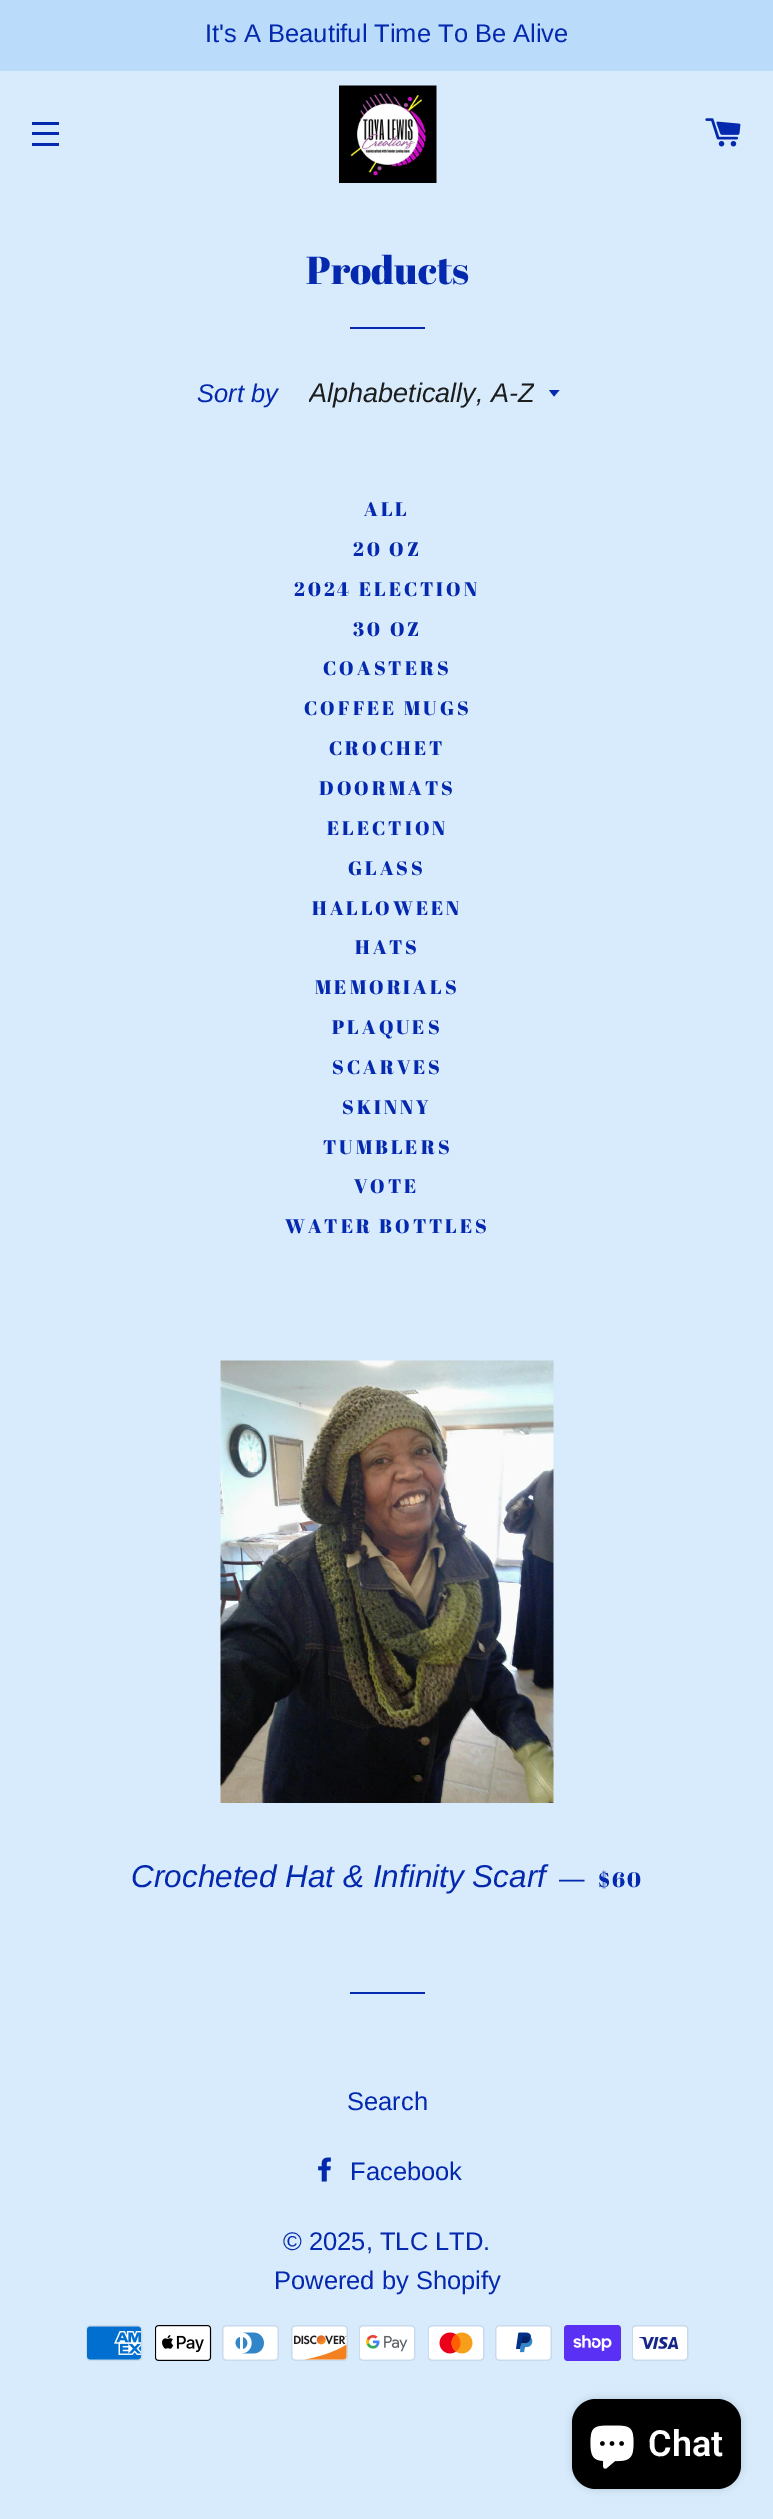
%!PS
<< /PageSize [773 2519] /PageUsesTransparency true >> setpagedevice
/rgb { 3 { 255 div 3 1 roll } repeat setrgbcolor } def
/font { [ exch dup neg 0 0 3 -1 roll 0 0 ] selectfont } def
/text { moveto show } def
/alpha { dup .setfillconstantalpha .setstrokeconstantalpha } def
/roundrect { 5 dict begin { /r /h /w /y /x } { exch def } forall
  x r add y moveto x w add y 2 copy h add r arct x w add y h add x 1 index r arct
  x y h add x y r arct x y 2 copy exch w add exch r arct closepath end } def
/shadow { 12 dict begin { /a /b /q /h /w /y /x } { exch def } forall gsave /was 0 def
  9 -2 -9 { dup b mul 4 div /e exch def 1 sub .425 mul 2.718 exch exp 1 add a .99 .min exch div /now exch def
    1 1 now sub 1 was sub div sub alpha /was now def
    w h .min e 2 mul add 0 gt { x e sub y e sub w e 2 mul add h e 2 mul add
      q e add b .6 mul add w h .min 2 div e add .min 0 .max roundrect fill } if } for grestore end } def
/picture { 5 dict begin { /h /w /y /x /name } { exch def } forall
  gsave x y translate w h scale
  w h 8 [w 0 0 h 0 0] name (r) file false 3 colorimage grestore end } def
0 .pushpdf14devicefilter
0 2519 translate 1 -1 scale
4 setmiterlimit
216 235 253 rgb
0 0 773 2519 rectfill
186 219 250 rgb
0 0 773 71 rectfill
4 41 174 rgb
32 122 27 3 rectfill
32 132 27 3 rectfill
32 143 27 3 rectfill
(img_01.rgb) 339 85 98 98 picture
(img_02.rgb) 705 118 36 29 picture
350 327 75 2 rectfill
549 390 moveto 5 6.5 rlineto 5.5 -6.5 rlineto closepath fill
(img_03.rgb) 220 1360 334 443 picture
350 1992 75 2 rectfill
(img_04.rgb) 318 2157 13 25 picture
(img_05.rgb) 86 2325 57 36 picture
(img_06.rgb) 155 2325 57 36 picture
(img_07.rgb) 222 2325 57 36 picture
(img_08.rgb) 291 2325 57 36 picture
(img_09.rgb) 359 2325 57 36 picture
(img_10.rgb) 428 2325 57 36 picture
(img_11.rgb) 495 2325 57 36 picture
(img_12.rgb) 564 2325 57 36 picture
(img_13.rgb) 632 2325 57 36 picture
0 0 0 rgb
572 2399 169 90 24 4 0.15 shadow
572 2399 169 90 24 roundrect fill
(img_14.rgb) 590 2425 44 44 picture
/LiberationSans-Regular 25.5 font
4 41 174 rgb
(It's A Beautiful Time To Be Alive) 205 42 text
/AbrilFatface-Regular 39 font
(Products) 306 284 text
/LiberationSans-Italic 25.5 font
(Sort by) 197 402 text
gsave
309 372 225 42 rectclip
/LiberationSans-Italic 27 font
28 29 29 rgb
(Alphabetically, A-Z) 309 402 text
grestore
/AbrilFatface-Regular 19.5 font
364 516 moveto 3 0 (ALL) ashow
353 556 moveto 3 0 (20 OZ) ashow
294 596 moveto 3 0 (2024 ELECTION) ashow
353 636 moveto 3 0 (30 OZ) ashow
323 675 moveto 3 0 (COASTERS) ashow
304 715 moveto 3 0 (COFFEE MUGS) ashow
329 755 moveto 3 0 (CROCHET) ashow
319 795 moveto 3 0 (DOORMATS) ashow
327 835 moveto 3 0 (ELECTION) ashow
348 875 moveto 3 0 (GLASS) ashow
312 915 moveto 3 0 (HALLOWEEN) ashow
355 954 moveto 3 0 (HATS) ashow
315 994 moveto 3 0 (MEMORIALS) ashow
332 1034 moveto 3 0 (PLAQUES) ashow
332 1074 moveto 3 0 (SCARVES) ashow
342 1114 moveto 3 0 (SKINNY) ashow
323 1154 moveto 3 0 (TUMBLERS) ashow
354 1193 moveto 3 0 (VOTE) ashow
285 1233 moveto 3 0 (WATER BOTTLES) ashow
/LiberationSans-Italic 31.5 font
(Crocheted Hat & Infinity Scarf) 131 1887 text
/LiberationSans-Regular 25.5 font
(—) 559 1887 text
/AbrilFatface-Regular 21 font
598 1887 moveto 2 0 ($60) ashow
/LiberationSans-Regular 25.5 font
(Search) 347 2110 text
(Facebook) 350 2180 text
(© 2025, TLC LTD.) 283 2250 text
(Powered by Shopify) 274 2289 text
/Roboto-SemiBold 36 font
255 255 255 rgb
(Chat) 648 2456 text
.poppdf14devicefilter showpage
